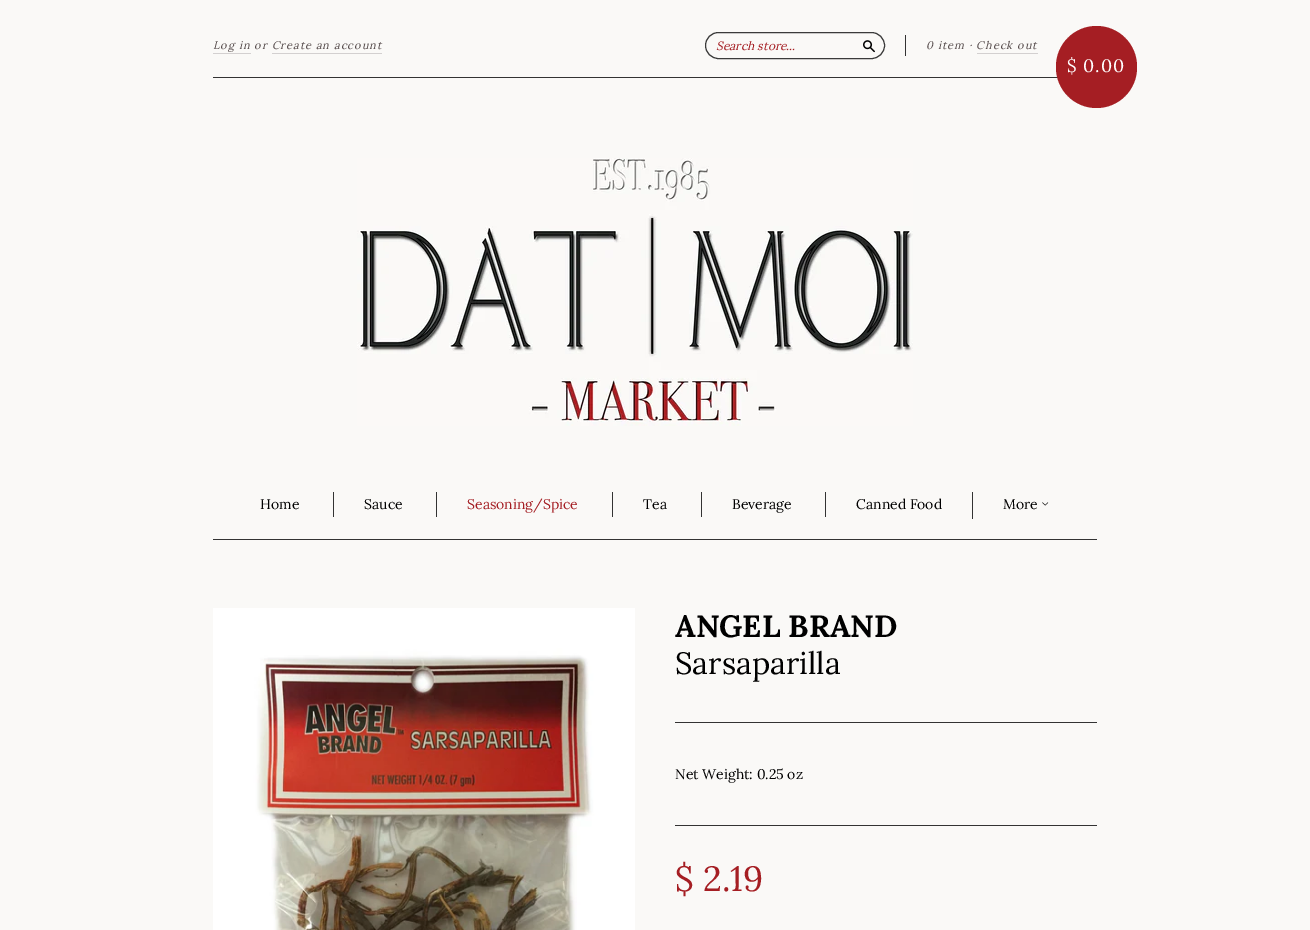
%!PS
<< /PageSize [1310 930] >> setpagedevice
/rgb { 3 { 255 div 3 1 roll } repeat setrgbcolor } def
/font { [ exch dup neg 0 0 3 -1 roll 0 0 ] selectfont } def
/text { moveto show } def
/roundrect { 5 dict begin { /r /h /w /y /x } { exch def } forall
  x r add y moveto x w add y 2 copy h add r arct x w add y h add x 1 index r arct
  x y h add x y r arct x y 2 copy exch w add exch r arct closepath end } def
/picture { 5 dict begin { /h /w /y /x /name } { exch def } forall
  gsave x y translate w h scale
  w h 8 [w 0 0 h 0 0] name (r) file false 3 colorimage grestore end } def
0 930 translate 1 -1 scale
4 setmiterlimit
250 249 247 rgb
0 0 1310 930 rectfill
51 51 51 rgb
213 539 884 1 rectfill
213 77 845 1 rectfill
211 208 208 rgb
213 53 38 1 rectfill
272 53 110 1 rectfill
59 59 59 rgb
705.5 32.5 179 26 13 roundrect stroke
(img_01.rgb) 863 40 12 13 picture
51 51 51 rgb
905 35 1 21 rectfill
211 208 208 rgb
977 53 61 1 rectfill
165 30 35 rgb
1056 26 81 82 40.5 roundrect fill
(img_02.rgb) 357 158 556 268 picture
51 51 51 rgb
333 492 1 25 rectfill
436 492 1 25 rectfill
612 492 1 25 rectfill
701 492 1 25 rectfill
825 492 1 25 rectfill
972 492 1 27 rectfill
(img_03.rgb) 1042 502 7 4 picture
(img_04.rgb) 213 608 422 322 picture
675 722 422 1 rectfill
675 825 422 1 rectfill
/Lora-Italic 11 font
86 76 76 rgb
213 49 moveto 1 0 (Log in or Create an account) ashow
/Lora-Italic 12 font
165 30 35 rgb
(Search store...) 716 50 text
/Lora-Italic 11 font
86 76 76 rgb
926 49 moveto 1 0 (0 item · Check out) ashow
/Lora-Regular 18 font
255 255 255 rgb
1067 72 moveto 1 0 ($ 0.00) ashow
/Lora-Regular 14 font
0 0 0 rgb
(Home) 260 509 text
(Sauce) 364 509 text
165 30 35 rgb
(Seasoning/Spice) 467 509 text
0 0 0 rgb
(Tea) 643 509 text
(Beverage) 732 509 text
(Canned Food) 856 509 text
(More) 1003 509 text
/Lora-Bold 30.75 font
(ANGEL BRAND) 675 637 text
/Lora-Regular 30.75 font
(Sarsaparilla) 675 674 text
/Lora-Regular 14 font
(Net Weight: 0.25 oz) 675 779 text
/Lora-Regular 35 font
165 30 35 rgb
($ 2.19) 675 891 text
showpage
